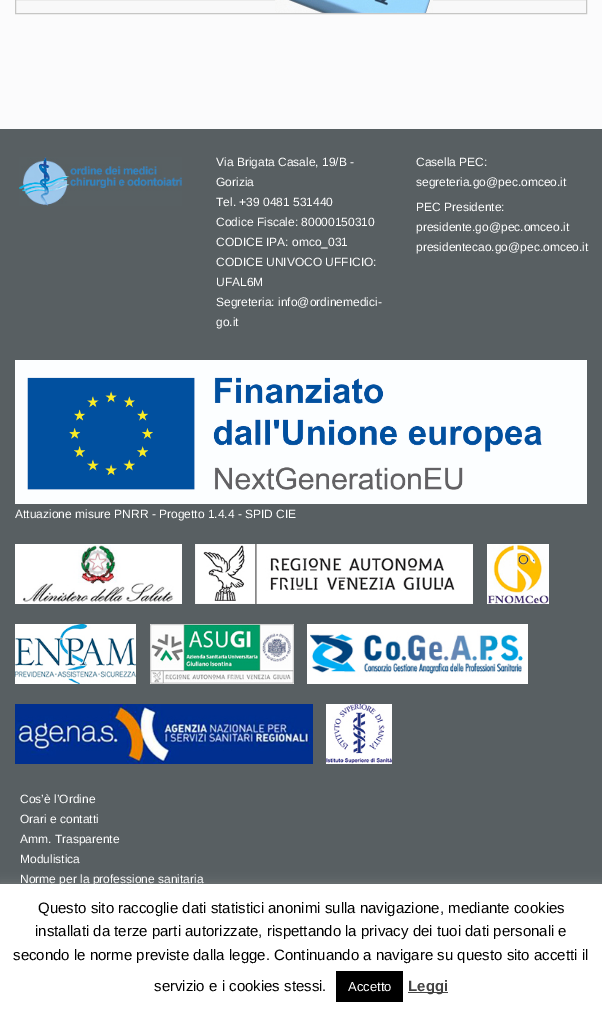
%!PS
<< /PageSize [602 1014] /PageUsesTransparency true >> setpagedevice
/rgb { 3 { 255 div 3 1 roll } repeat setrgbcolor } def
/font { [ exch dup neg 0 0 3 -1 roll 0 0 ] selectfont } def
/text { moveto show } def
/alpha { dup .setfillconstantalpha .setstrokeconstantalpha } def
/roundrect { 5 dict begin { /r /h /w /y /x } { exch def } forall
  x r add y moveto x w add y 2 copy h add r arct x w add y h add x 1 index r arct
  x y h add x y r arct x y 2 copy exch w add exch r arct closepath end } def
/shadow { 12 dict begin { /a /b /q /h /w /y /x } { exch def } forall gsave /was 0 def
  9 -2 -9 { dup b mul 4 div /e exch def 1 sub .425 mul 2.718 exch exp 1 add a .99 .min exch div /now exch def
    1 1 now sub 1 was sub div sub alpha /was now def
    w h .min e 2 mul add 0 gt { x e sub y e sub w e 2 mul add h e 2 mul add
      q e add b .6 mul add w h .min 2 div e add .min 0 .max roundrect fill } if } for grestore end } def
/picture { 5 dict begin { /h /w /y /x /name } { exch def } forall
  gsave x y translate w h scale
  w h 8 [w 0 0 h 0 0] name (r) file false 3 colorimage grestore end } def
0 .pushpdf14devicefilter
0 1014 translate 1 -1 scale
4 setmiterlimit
251 251 252 rgb
0 0 602 1014 rectfill
248 248 249 rgb
15.5 -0.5 moveto 571 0 rlineto 0 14 rlineto -571 0 rlineto closepath gsave fill grestore
198 198 197 rgb
stroke
(img_01.rgb) 275 0 158 13 picture
88 95 98 rgb
0 129 602 755 rectfill
(img_02.rgb) 19 157 163 49 picture
(img_03.rgb) 15 360 572 144 picture
(img_04.rgb) 15 544 167 60 picture
(img_05.rgb) 195 544 278 60 picture
(img_06.rgb) 487 544 62 60 picture
(img_07.rgb) 15 624 121 60 picture
(img_08.rgb) 150 624 144 60 picture
(img_09.rgb) 307 624 221 60 picture
(img_10.rgb) 15 704 298 60 picture
(img_11.rgb) 326 704 66 60 picture
172 171 171 rgb
0 883 602 130 0 5 0.3 shadow
255 255 255 rgb
0 884 602 130 rectfill
0 0 0 rgb
336 971 67 31 rectfill
68 68 68 rgb
408 992 40 1 rectfill
/LiberationSans-Regular 12 font
255 255 255 rgb
(Via Brigata Casale, 19/B -) 216 166 text
(Gorizia) 216 186 text
(Tel. +39 0481 531440) 216 206 text
(Codice Fiscale: 80000150310) 216 226 text
(CODICE IPA: omco_031) 216 246 text
(CODICE UNIVOCO UFFICIO:) 216 266 text
(UFAL6M) 216 286 text
(Segreteria: info@ordinemedici-) 216 306 text
(go.it) 216 326 text
(Casella PEC:) 416 166 text
(segreteria.go@pec.omceo.it) 416 186 text
(PEC Presidente:) 416 211 text
(presidente.go@pec.omceo.it) 416 231 text
(presidentecao.go@pec.omceo.it) 416 251 text
(Attuazione misure PNRR - Progetto 1.4.4 - SPID CIE) 15 518 text
(Cos’è l’Ordine) 20 803 text
(Orari e contatti) 20 823 text
(Amm. Trasparente) 20 843 text
(Modulistica) 20 863 text
(Norme per la professione sanitaria) 20 883 text
/LiberationSans-Regular 15 font
0 0 0 rgb
(Questo sito raccoglie dati statistici anonimi sulla navigazione, mediante cookies) 38 913 text
(installati da terze parti autorizzate, rispettando la privacy dei tuoi dati personali e) 35 936 text
(secondo le norme previste dalla legge. Continuando a navigare su questo sito accetti il) 13 960 text
(servizio e i cookies stessi.) 154 991 text
/LiberationSans-Regular 13 font
255 255 255 rgb
(Accetto) 348 991 text
/LiberationSans-Bold 15 font
68 68 68 rgb
(Leggi) 408 991 text
.poppdf14devicefilter showpage
